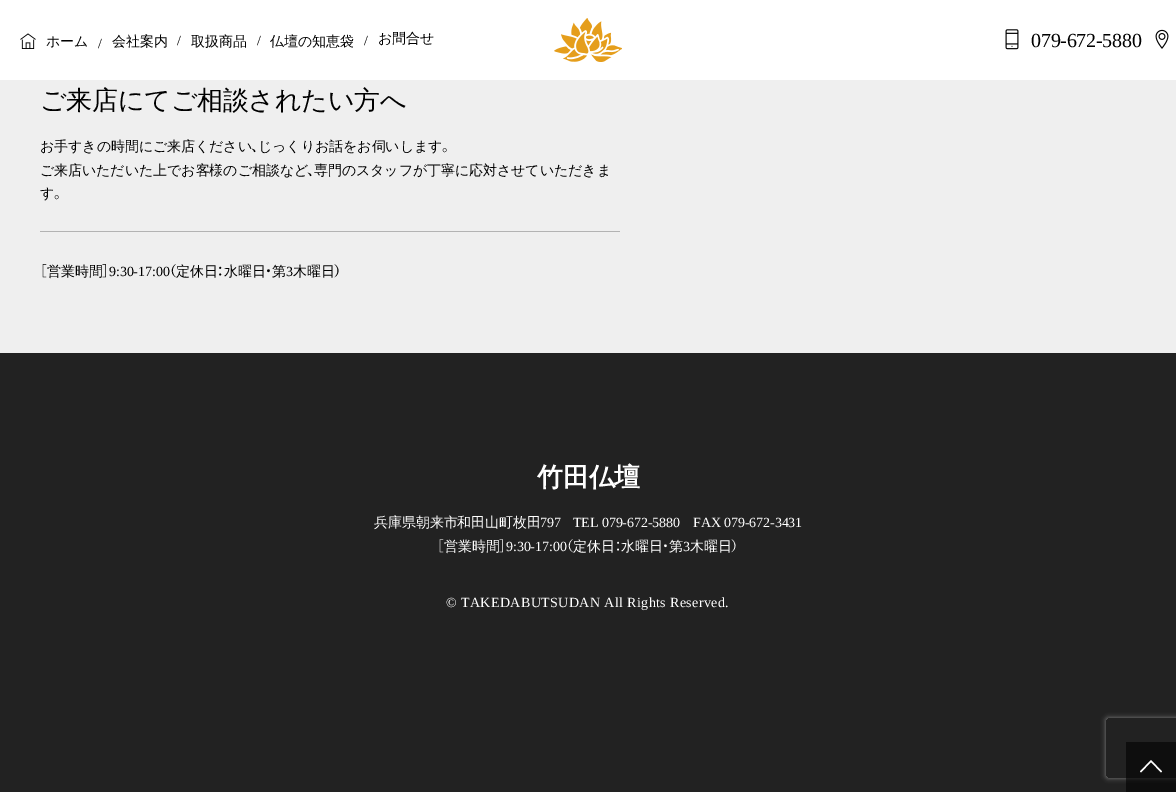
%!PS
<< /PageSize [1176 792] /PageUsesTransparency true >> setpagedevice
/rgb { 3 { 255 div 3 1 roll } repeat setrgbcolor } def
/font { [ exch dup neg 0 0 3 -1 roll 0 0 ] selectfont } def
/alpha { dup .setfillconstantalpha .setstrokeconstantalpha } def
/roundrect { 5 dict begin { /r /h /w /y /x } { exch def } forall
  x r add y moveto x w add y 2 copy h add r arct x w add y h add x 1 index r arct
  x y h add x y r arct x y 2 copy exch w add exch r arct closepath end } def
/shadow { 12 dict begin { /a /b /q /h /w /y /x } { exch def } forall gsave /was 0 def
  9 -2 -9 { dup b mul 4 div /e exch def 1 sub .425 mul 2.718 exch exp 1 add a .99 .min exch div /now exch def
    1 1 now sub 1 was sub div sub alpha /was now def
    w h .min e 2 mul add 0 gt { x e sub y e sub w e 2 mul add h e 2 mul add
      q e add b .6 mul add w h .min 2 div e add .min 0 .max roundrect fill } if } for grestore end } def
/picture { 5 dict begin { /h /w /y /x /name } { exch def } forall
  gsave x y translate w h scale
  w h 8 [w 0 0 h 0 0] name (r) file false 3 colorimage grestore end } def
0 .pushpdf14devicefilter
0 792 translate 1 -1 scale
4 setmiterlimit
239 239 239 rgb
0 0 1176 792 rectfill
255 255 255 rgb
0 0 1176 80 rectfill
(img_01.rgb) 20 33 16 16 picture
(img_02.rgb) 554 18 68 44 picture
(img_03.rgb) 1005 29 14 21 picture
(img_04.rgb) 1155 29 14 20 picture
179 179 179 rgb
40 231 580 1 rectfill
34 34 34 rgb
0 353 1176 439 rectfill
gsave
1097 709 moveto 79 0 rlineto 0 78 rlineto -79 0 rlineto closepath 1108 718 moveto 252 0 rlineto 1 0 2 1 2 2 rcurveto 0 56 rlineto 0 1 -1 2 -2 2 rcurveto -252 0 rlineto -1 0 -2 -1 -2 -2 rcurveto 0 -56 rlineto 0 -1 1 -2 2 -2 rcurveto closepath eoclip newpath
128 128 128 rgb
1106 718 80 60 2 2.5 1 shadow
grestore
0.6 alpha
0 0 0 rgb
1126 742 50 50 rectfill
1 alpha
255 255 255 rgb
1162 771.5 moveto -1 1 rlineto -10 -10.5 rlineto -10 10.5 rlineto -1 -1 rlineto 11 -11.5 rlineto closepath fill
/WenQuanYiZenHei-Medium 14 font
0 0 0 rgb
46 46 moveto -0.1 0 (ホーム) ashow
/LiberationSerif-Regular 14 font
98 48 moveto -0.1 0 (/) ashow
/WenQuanYiZenHei-Medium 14 font
112 46 moveto -0.1 0 (会社案内) ashow
/LiberationSerif-Regular 14 font
177 45 moveto -0.1 0 (/) ashow
/WenQuanYiZenHei-Medium 14 font
191 46 moveto -0.1 0 (取扱商品) ashow
/LiberationSerif-Regular 14 font
257 45 moveto -0.1 0 (/) ashow
/WenQuanYiZenHei-Medium 14 font
270 46 moveto -0.1 0 (仏壇の知恵袋) ashow
/LiberationSerif-Regular 14 font
364 45 moveto -0.1 0 (/) ashow
/WenQuanYiZenHei-Medium 14 font
378 43 moveto -0.1 0 (お問合せ) ashow
/LiberationSerif-Regular 20 font
1031 47 moveto -0.25 0 (079-672-5880) ashow
/WenQuanYiZenHei-Medium 26 font
40 109 moveto -0.25 0 (ご来店にてご相談されたい方へ) ashow
/WenQuanYiZenHei-Medium 14 font
40 151 moveto -0.1 0 (お手すきの時間にご来店ください) ashow
/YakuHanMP-SemiBold 14 font
251 151 moveto -0.1 0 (、) ashow
/WenQuanYiZenHei-Medium 14 font
258 151 moveto -0.1 0 (じっくりお話をお伺いします) ashow
/YakuHanMP-SemiBold 14 font
442 151 moveto -0.1 0 (。) ashow
/WenQuanYiZenHei-Medium 14 font
40 175 moveto -0.1 0 (ご来店いただいた上でお客様のご相談など) ashow
/YakuHanMP-SemiBold 14 font
307 175 moveto -0.1 0 (、) ashow
/WenQuanYiZenHei-Medium 14 font
314 175 moveto -0.1 0 (専門のスタッフが丁寧に応対させていただきま) ashow
40 198 moveto -0.1 0 (す) ashow
/YakuHanMP-SemiBold 14 font
54 198 moveto -0.1 0 (。) ashow
40 276 moveto -0.1 0 (［) ashow
/WenQuanYiZenHei-Medium 14 font
47 276 moveto -0.1 0 (営業時間) ashow
/YakuHanMP-SemiBold 14 font
102 276 moveto -0.1 0 (］) ashow
/LiberationSerif-Regular 14 font
109 276 moveto -0.1 0 (9:30-17:00) ashow
/YakuHanMP-SemiBold 14 font
169 276 moveto -0.1 0 (（) ashow
/WenQuanYiZenHei-Medium 14 font
176 276 moveto -0.1 0 (定休日) ashow
/YakuHanMP-SemiBold 14 font
217 276 moveto -0.1 0 (：) ashow
/WenQuanYiZenHei-Medium 14 font
224 276 moveto -0.1 0 (水曜日) ashow
/YakuHanMP-SemiBold 14 font
265 276 moveto -0.1 0 (・) ashow
/WenQuanYiZenHei-Medium 14 font
272 276 moveto -0.1 0 (第) ashow
/LiberationSerif-Regular 14 font
286 276 moveto -0.1 0 (3) ashow
/WenQuanYiZenHei-Medium 14 font
293 276 moveto -0.1 0 (木曜日) ashow
/YakuHanMP-SemiBold 14 font
334 276 moveto -0.1 0 (）) ashow
/WenQuanYiZenHei-Bold 26 font
255 255 255 rgb
537 486 moveto -0.25 0 (竹田仏壇) ashow
/WenQuanYiZenHei-Medium 14 font
374 527 moveto -0.1 0 (兵庫県朝来市和田山町枚田) ashow
/LiberationSerif-Regular 14 font
540 527 moveto -0.1 0 (797) ashow
573 527 moveto -0.1 0 (TEL 079-672-5880) ashow
693 527 moveto -0.1 0 (FAX 079-672-3431) ashow
/YakuHanMP-Medium 14 font
437 551 moveto -0.1 0 (［) ashow
/WenQuanYiZenHei-Medium 14 font
444 551 moveto -0.1 0 (営業時間) ashow
/YakuHanMP-Medium 14 font
499 551 moveto -0.1 0 (］) ashow
/LiberationSerif-Regular 14 font
506 551 moveto -0.1 0 (9:30-17:00) ashow
/YakuHanMP-Medium 14 font
566 551 moveto -0.1 0 (（) ashow
/WenQuanYiZenHei-Medium 14 font
573 551 moveto -0.1 0 (定休日) ashow
/YakuHanMP-Medium 14 font
615 551 moveto -0.1 0 (：) ashow
/WenQuanYiZenHei-Medium 14 font
621 551 moveto -0.1 0 (水曜日) ashow
/YakuHanMP-Medium 14 font
662 551 moveto -0.1 0 (・) ashow
/WenQuanYiZenHei-Medium 14 font
669 551 moveto -0.1 0 (第) ashow
/LiberationSerif-Regular 14 font
683 551 moveto -0.1 0 (3) ashow
/WenQuanYiZenHei-Medium 14 font
690 551 moveto -0.1 0 (木曜日) ashow
/YakuHanMP-Medium 14 font
731 551 moveto -0.1 0 (）) ashow
/LiberationSerif-Regular 14 font
446 607 moveto 0.4 0 (© TAKEDABUTSUDAN All Rights Reserved.) ashow
.poppdf14devicefilter showpage
